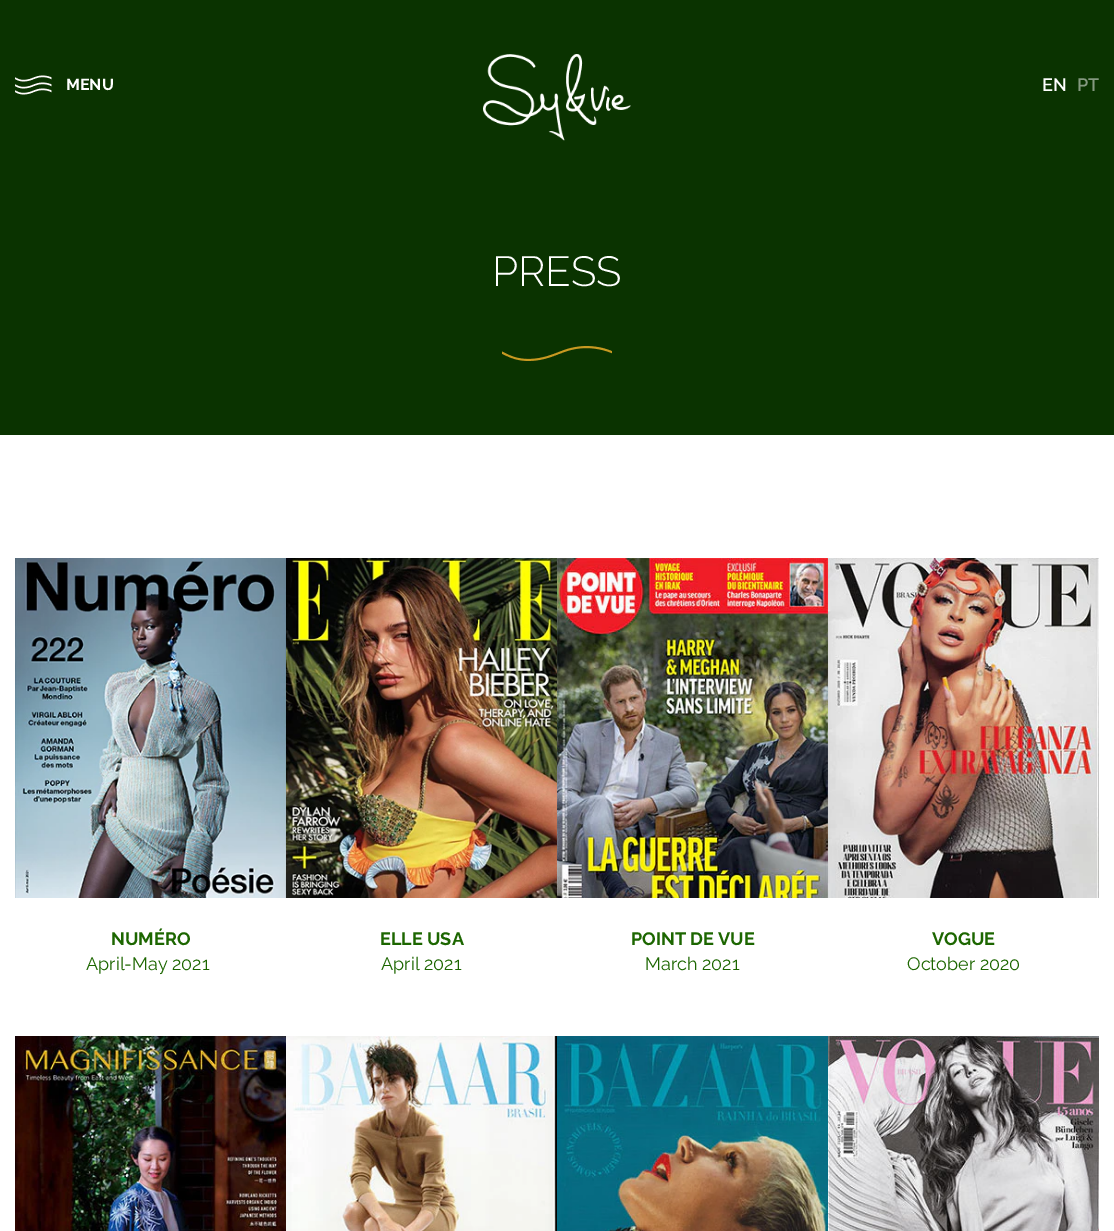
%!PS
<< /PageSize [1114 1231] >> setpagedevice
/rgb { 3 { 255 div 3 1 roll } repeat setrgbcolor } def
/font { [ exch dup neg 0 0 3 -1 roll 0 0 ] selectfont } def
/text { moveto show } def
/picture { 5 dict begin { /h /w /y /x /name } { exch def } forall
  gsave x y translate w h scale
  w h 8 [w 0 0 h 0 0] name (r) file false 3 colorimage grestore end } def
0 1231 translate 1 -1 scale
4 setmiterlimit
255 255 255 rgb
0 0 1114 1231 rectfill
10 51 0 rgb
0 0 1114 435 rectfill
(img_01.rgb) 15 75 37 20 picture
(img_02.rgb) 483 54 148 87 picture
(img_03.rgb) 502 346 110 15 picture
(img_04.rgb) 15 558 271 340 picture
(img_05.rgb) 286 558 271 340 picture
(img_06.rgb) 557 558 271 340 picture
(img_07.rgb) 828 558 271 340 picture
(img_08.rgb) 15 1036 271 195 picture
(img_09.rgb) 286 1036 271 195 picture
(img_10.rgb) 557 1036 271 195 picture
(img_11.rgb) 828 1036 271 195 picture
/Raleway-Bold 16 font
255 255 255 rgb
(MENU) 66 90 text
/Raleway-SemiBold 18 font
(EN) 1042 91 text
133 153 128 rgb
(PT) 1077 91 text
/Raleway-Light 42 font
255 255 255 rgb
(PRESS) 492 286 text
/Raleway-Bold 18 font
28 102 0 rgb
(NUMÉRO) 111 945 text
/Raleway-Regular 18 font
(April-May 2021) 86 970 text
/Raleway-Bold 18 font
(ELLE USA) 380 945 text
/Raleway-Regular 18 font
(April 2021) 381 970 text
/Raleway-Bold 18 font
(POINT DE VUE) 631 945 text
/Raleway-Regular 18 font
(March 2021) 645 970 text
/Raleway-Bold 18 font
(VOGUE) 932 945 text
/Raleway-Regular 18 font
(October 2020) 907 970 text
showpage
